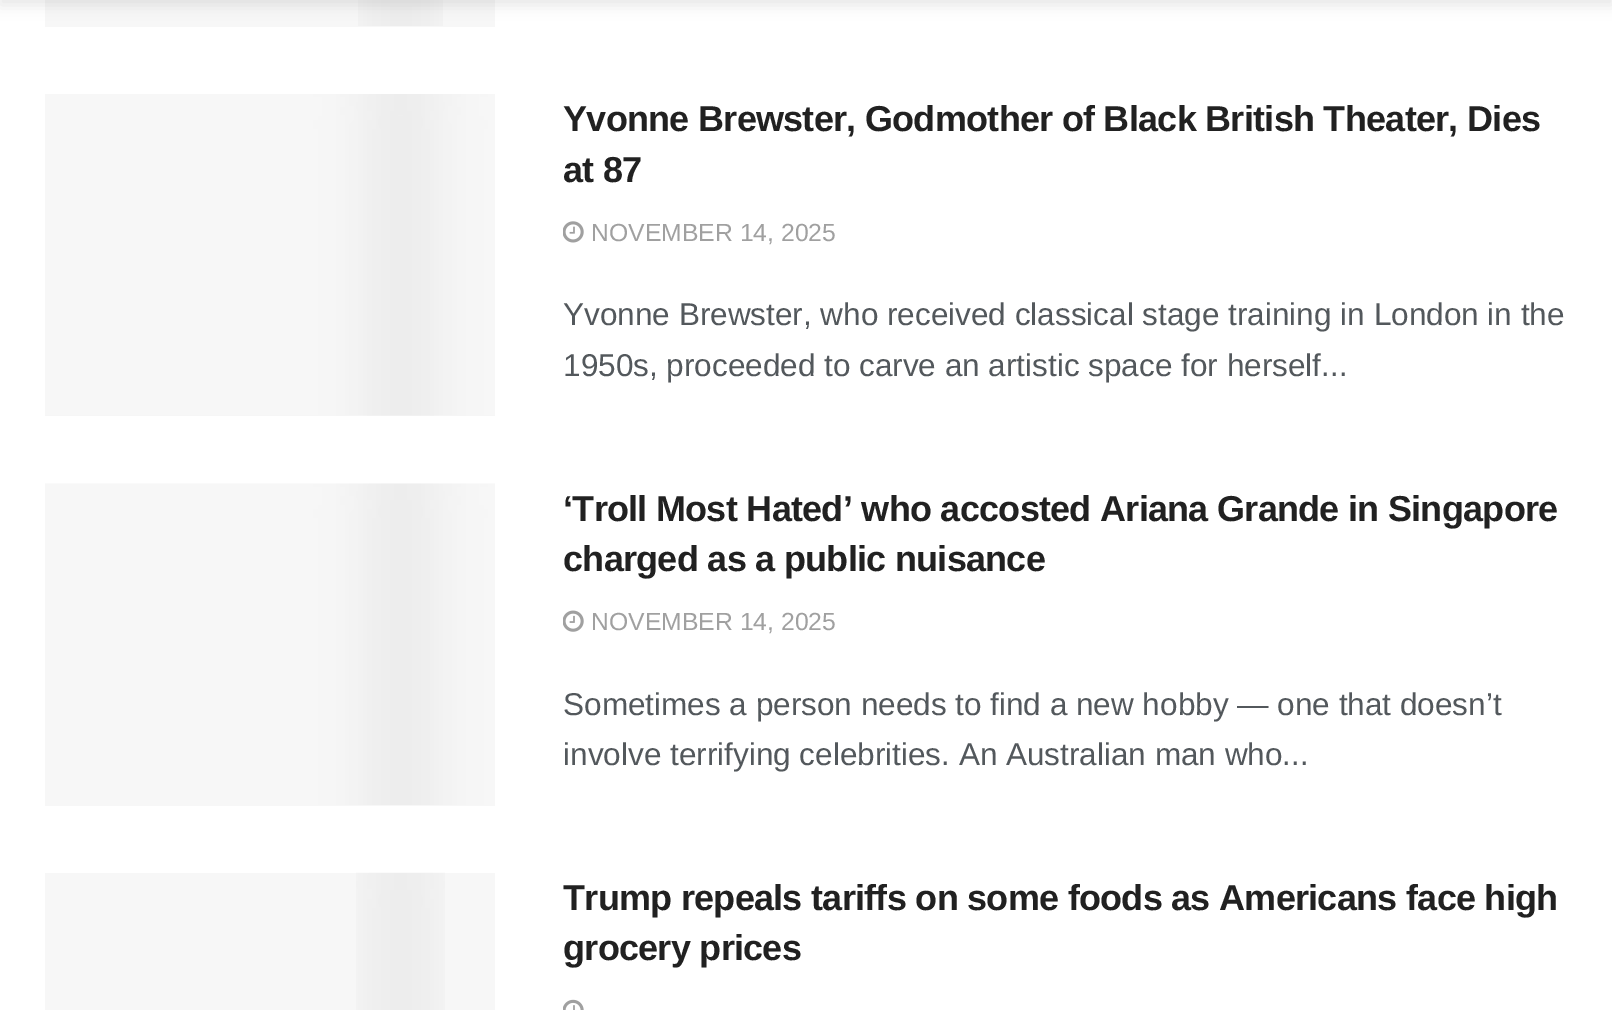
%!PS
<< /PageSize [1612 1010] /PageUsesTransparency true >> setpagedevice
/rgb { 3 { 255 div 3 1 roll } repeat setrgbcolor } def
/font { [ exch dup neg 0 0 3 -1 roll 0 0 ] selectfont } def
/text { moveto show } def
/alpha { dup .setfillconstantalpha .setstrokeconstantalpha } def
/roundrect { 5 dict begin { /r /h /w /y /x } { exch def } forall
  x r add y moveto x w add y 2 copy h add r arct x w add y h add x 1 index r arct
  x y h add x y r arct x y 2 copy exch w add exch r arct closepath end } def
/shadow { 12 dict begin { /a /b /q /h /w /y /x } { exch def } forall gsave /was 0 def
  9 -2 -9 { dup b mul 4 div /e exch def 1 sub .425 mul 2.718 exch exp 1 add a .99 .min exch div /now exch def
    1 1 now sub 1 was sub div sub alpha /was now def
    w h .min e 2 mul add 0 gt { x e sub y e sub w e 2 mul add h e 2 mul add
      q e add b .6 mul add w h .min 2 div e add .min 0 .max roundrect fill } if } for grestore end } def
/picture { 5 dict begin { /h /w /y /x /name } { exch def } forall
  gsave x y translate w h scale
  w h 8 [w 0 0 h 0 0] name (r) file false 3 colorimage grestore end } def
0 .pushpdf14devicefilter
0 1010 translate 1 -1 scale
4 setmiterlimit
255 255 255 rgb
0 0 1612 1010 rectfill
247 247 247 rgb
45 0 450 27 rectfill
(img_01.rgb) 358 0 85 26 picture
0 0 0 rgb
0 -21 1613 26 0 7 0.1 shadow
247 247 247 rgb
45 415 450 1 rectfill
(img_02.rgb) 45 94 450 322 picture
(img_03.rgb) 563 221 21 22 picture
45 805 450 1 rectfill
(img_04.rgb) 45 483 450 322 picture
(img_05.rgb) 563 610 21 22 picture
45 873 450 137 rectfill
(img_06.rgb) 356 872 89 138 picture
(img_07.rgb) 563 999 21 11 picture
/LiberationSans-Bold 36 font
33 33 33 rgb
563 131 moveto -0.72 0 (Yvonne Brewster, Godmother of Black British Theater, Dies) ashow
563 182 moveto -0.72 0 (at 87) ashow
/LiberationSans-Regular 24.75 font
160 160 160 rgb
(NOVEMBER 14, 2025) 591 241 text
/LiberationSans-Regular 31.5 font
83 88 92 rgb
(Yvonne Brewster, who received classical stage training in London in the) 563 325 text
(1950s, proceeded to carve an artistic space for herself...) 563 376 text
/LiberationSans-Bold 36 font
33 33 33 rgb
563 521 moveto -0.72 0 (‘Troll Most Hated’ who accosted Ariana Grande in Singapore) ashow
563 571 moveto -0.72 0 (charged as a public nuisance) ashow
/LiberationSans-Regular 24.75 font
160 160 160 rgb
(NOVEMBER 14, 2025) 591 630 text
/LiberationSans-Regular 31.5 font
83 88 92 rgb
(Sometimes a person needs to find a new hobby — one that doesn’t) 563 715 text
(involve terrifying celebrities. An Australian man who...) 563 765 text
gsave
563 873 1005 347 rectclip
/LiberationSans-Bold 36 font
33 33 33 rgb
563 910 moveto -0.72 0 (Trump repeals tariffs on some foods as Americans face high) ashow
grestore
/LiberationSans-Bold 36 font
33 33 33 rgb
563 960 moveto -0.72 0 (grocery prices) ashow
.poppdf14devicefilter showpage
